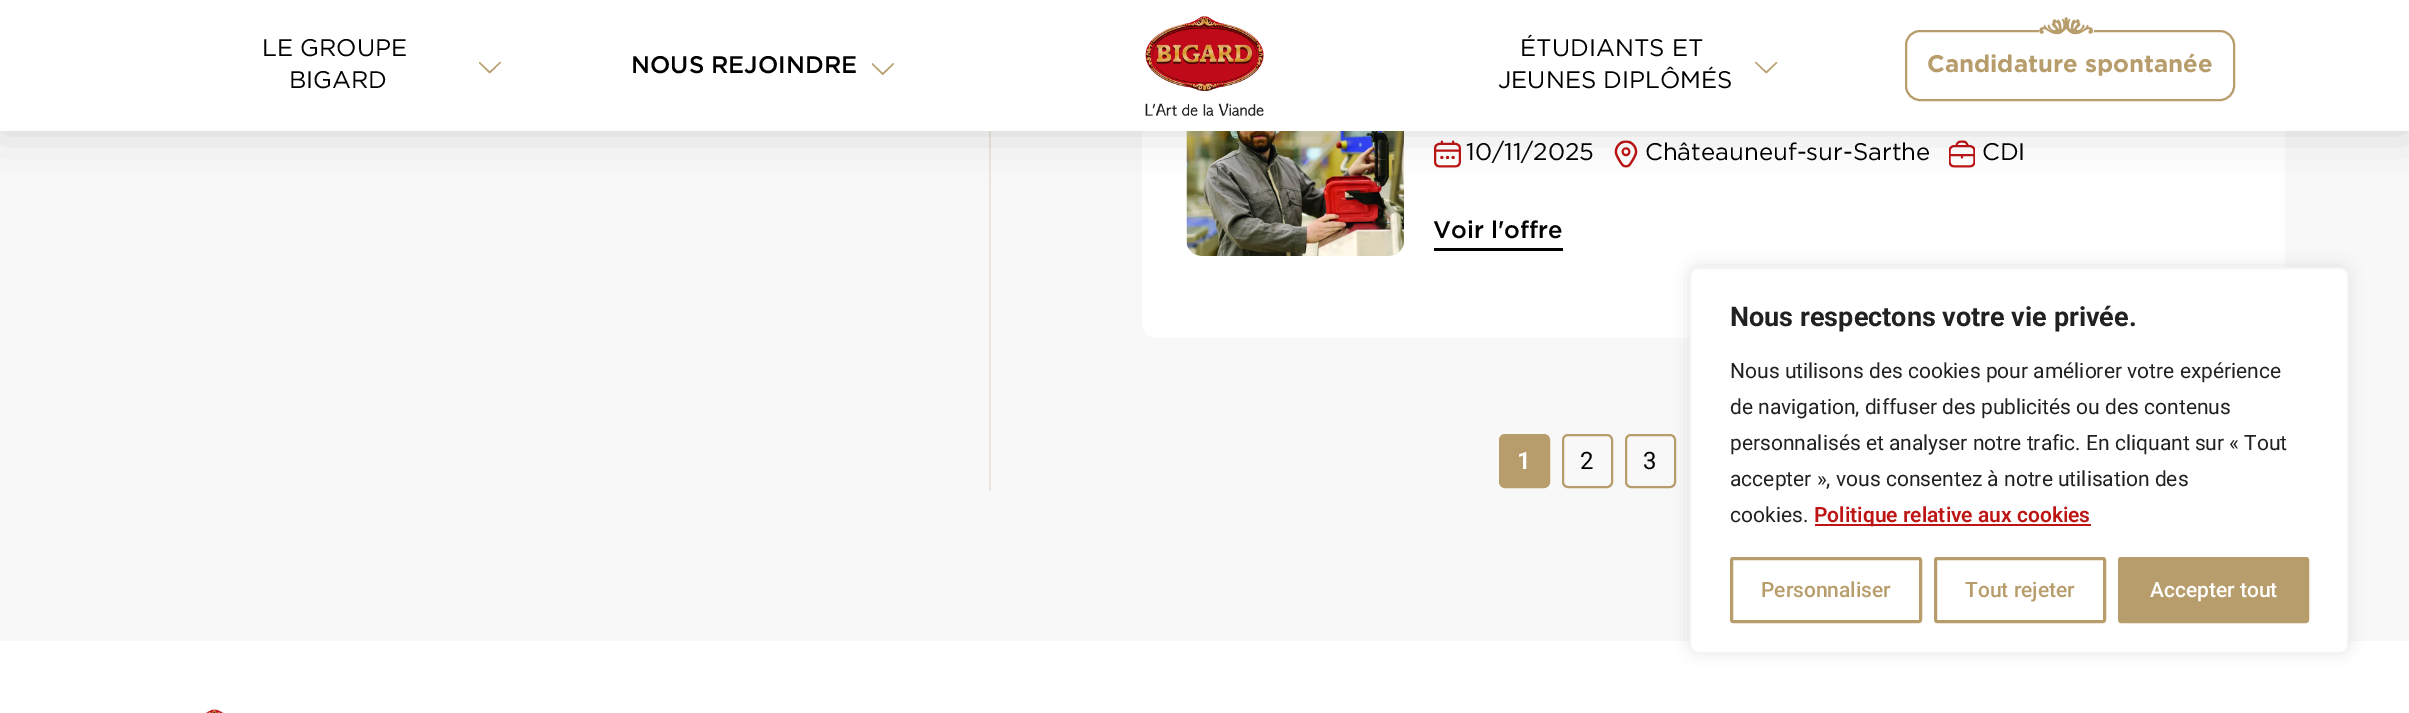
%!PS
<< /PageSize [2409 713] /PageUsesTransparency true >> setpagedevice
/rgb { 3 { 255 div 3 1 roll } repeat setrgbcolor } def
/font { [ exch dup neg 0 0 3 -1 roll 0 0 ] selectfont } def
/text { moveto show } def
/alpha { dup .setfillconstantalpha .setstrokeconstantalpha } def
/roundrect { 5 dict begin { /r /h /w /y /x } { exch def } forall
  x r add y moveto x w add y 2 copy h add r arct x w add y h add x 1 index r arct
  x y h add x y r arct x y 2 copy exch w add exch r arct closepath end } def
/shadow { 12 dict begin { /a /b /q /h /w /y /x } { exch def } forall gsave /was 0 def
  9 -2 -9 { dup b mul 4 div /e exch def 1 sub .425 mul 2.718 exch exp 1 add a .99 .min exch div /now exch def
    1 1 now sub 1 was sub div sub alpha /was now def
    w h .min e 2 mul add 0 gt { x e sub y e sub w e 2 mul add h e 2 mul add
      q e add b .6 mul add w h .min 2 div e add .min 0 .max roundrect fill } if } for grestore end } def
/picture { 5 dict begin { /h /w /y /x /name } { exch def } forall
  gsave x y translate w h scale
  w h 8 [w 0 0 h 0 0] name (r) file false 3 colorimage grestore end } def
0 .pushpdf14devicefilter
0 713 translate 1 -1 scale
4 setmiterlimit
255 255 255 rgb
0 0 2409 713 rectfill
248 248 248 rgb
0 131 2409 510 rectfill
235 230 220 rgb
989 131 2 360 rectfill
255 255 255 rgb
1142 -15 1143 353 15 roundrect fill
(img_06.rgb) 1186 131 218 125 picture
(img_07.rgb) 1434 140 27 28 picture
(img_08.rgb) 1614 140 24 28 picture
(img_09.rgb) 1949 140 26 28 picture
0 0 0 rgb
0 0 2409 131 0 22.5 0.15 shadow
255 255 255 rgb
0 0 2409 131 rectfill
(img_01.rgb) 1145 16 119 100 picture
(img_02.rgb) 479 62 22 12 picture
(img_03.rgb) 872 63 22 12 picture
(img_04.rgb) 1755 62 23 12 picture
184 157 108 rgb
2 setlinewidth
1906 31 328 69 14 roundrect stroke
255 255 255 rgb
2039 30 55 2 rectfill
(img_05.rgb) 2039 17 54 18 picture
2 0 0 rgb
1434 248 129 3 rectfill
184 157 108 rgb
1500 435 49 52 5 roundrect gsave fill grestore
stroke
1563 435 49 52 5 roundrect stroke
1626 435 49 52 5 roundrect stroke
172 171 171 rgb
1689 266 660 387 9 7.5 0.3 shadow
255 255 255 rgb
1690 268 658 385 8 roundrect gsave fill grestore
244 244 244 rgb
stroke
189 20 20 rgb
1815 524 276 2 rectfill
184 157 108 rgb
3 setlinewidth
1731.5 558.5 189 63 1.5 roundrect stroke
1935.5 558.5 169 63 1.5 roundrect stroke
2119.5 558.5 188 63 1.5 roundrect gsave fill grestore
stroke
(img_10.rgb) 205 709 19 4 picture
/Gotham-Regular 24 font
2 0 0 rgb
(LE GROUPE) 262 56 text
(BIGARD) 289 88 text
/Gotham-Medium 24 font
(NOUS REJOINDRE) 631 73 text
/Gotham-Regular 24 font
(ÉTUDIANTS ET) 1520 56 text
(JEUNES DIPLÔMÉS) 1498 88 text
/Gotham-Bold 24 font
184 157 108 rgb
(Candidature spontanée) 1927 72 text
/Gotham-Regular 24 font
2 0 0 rgb
(10/11/2025) 1466 160 text
(Châteauneuf-sur-Sarthe) 1645 160 text
(CDI) 1982 160 text
/Gotham-Medium 24 font
(Voir l'offre) 1433 238 text
/Roboto-SemiBold 24 font
255 255 255 rgb
(1) 1517 469 text
/Roboto-Regular 24 font
2 0 0 rgb
(2) 1580 469 text
(3) 1643 469 text
/Roboto-Bold 27 font
33 33 33 rgb
(Nous respectons votre vie privée.) 1730 326 text
/Roboto-Regular 21 font
(Nous utilisons des cookies pour améliorer votre expérience) 1730 378 text
(de navigation, diffuser des publicités ou des contenus) 1730 414 text
(personnalisés et analyser notre trafic. En cliquant sur « Tout) 1730 450 text
(accepter », vous consentez à notre utilisation des) 1730 486 text
(cookies.) 1730 522 text
/Roboto-SemiBold 21 font
189 20 20 rgb
(Politique relative aux cookies) 1814 522 text
/Roboto-Medium 21 font
184 157 108 rgb
(Personnaliser) 1761 597 text
(Tout rejeter) 1965 597 text
255 255 255 rgb
(Accepter tout) 2150 597 text
.poppdf14devicefilter showpage
